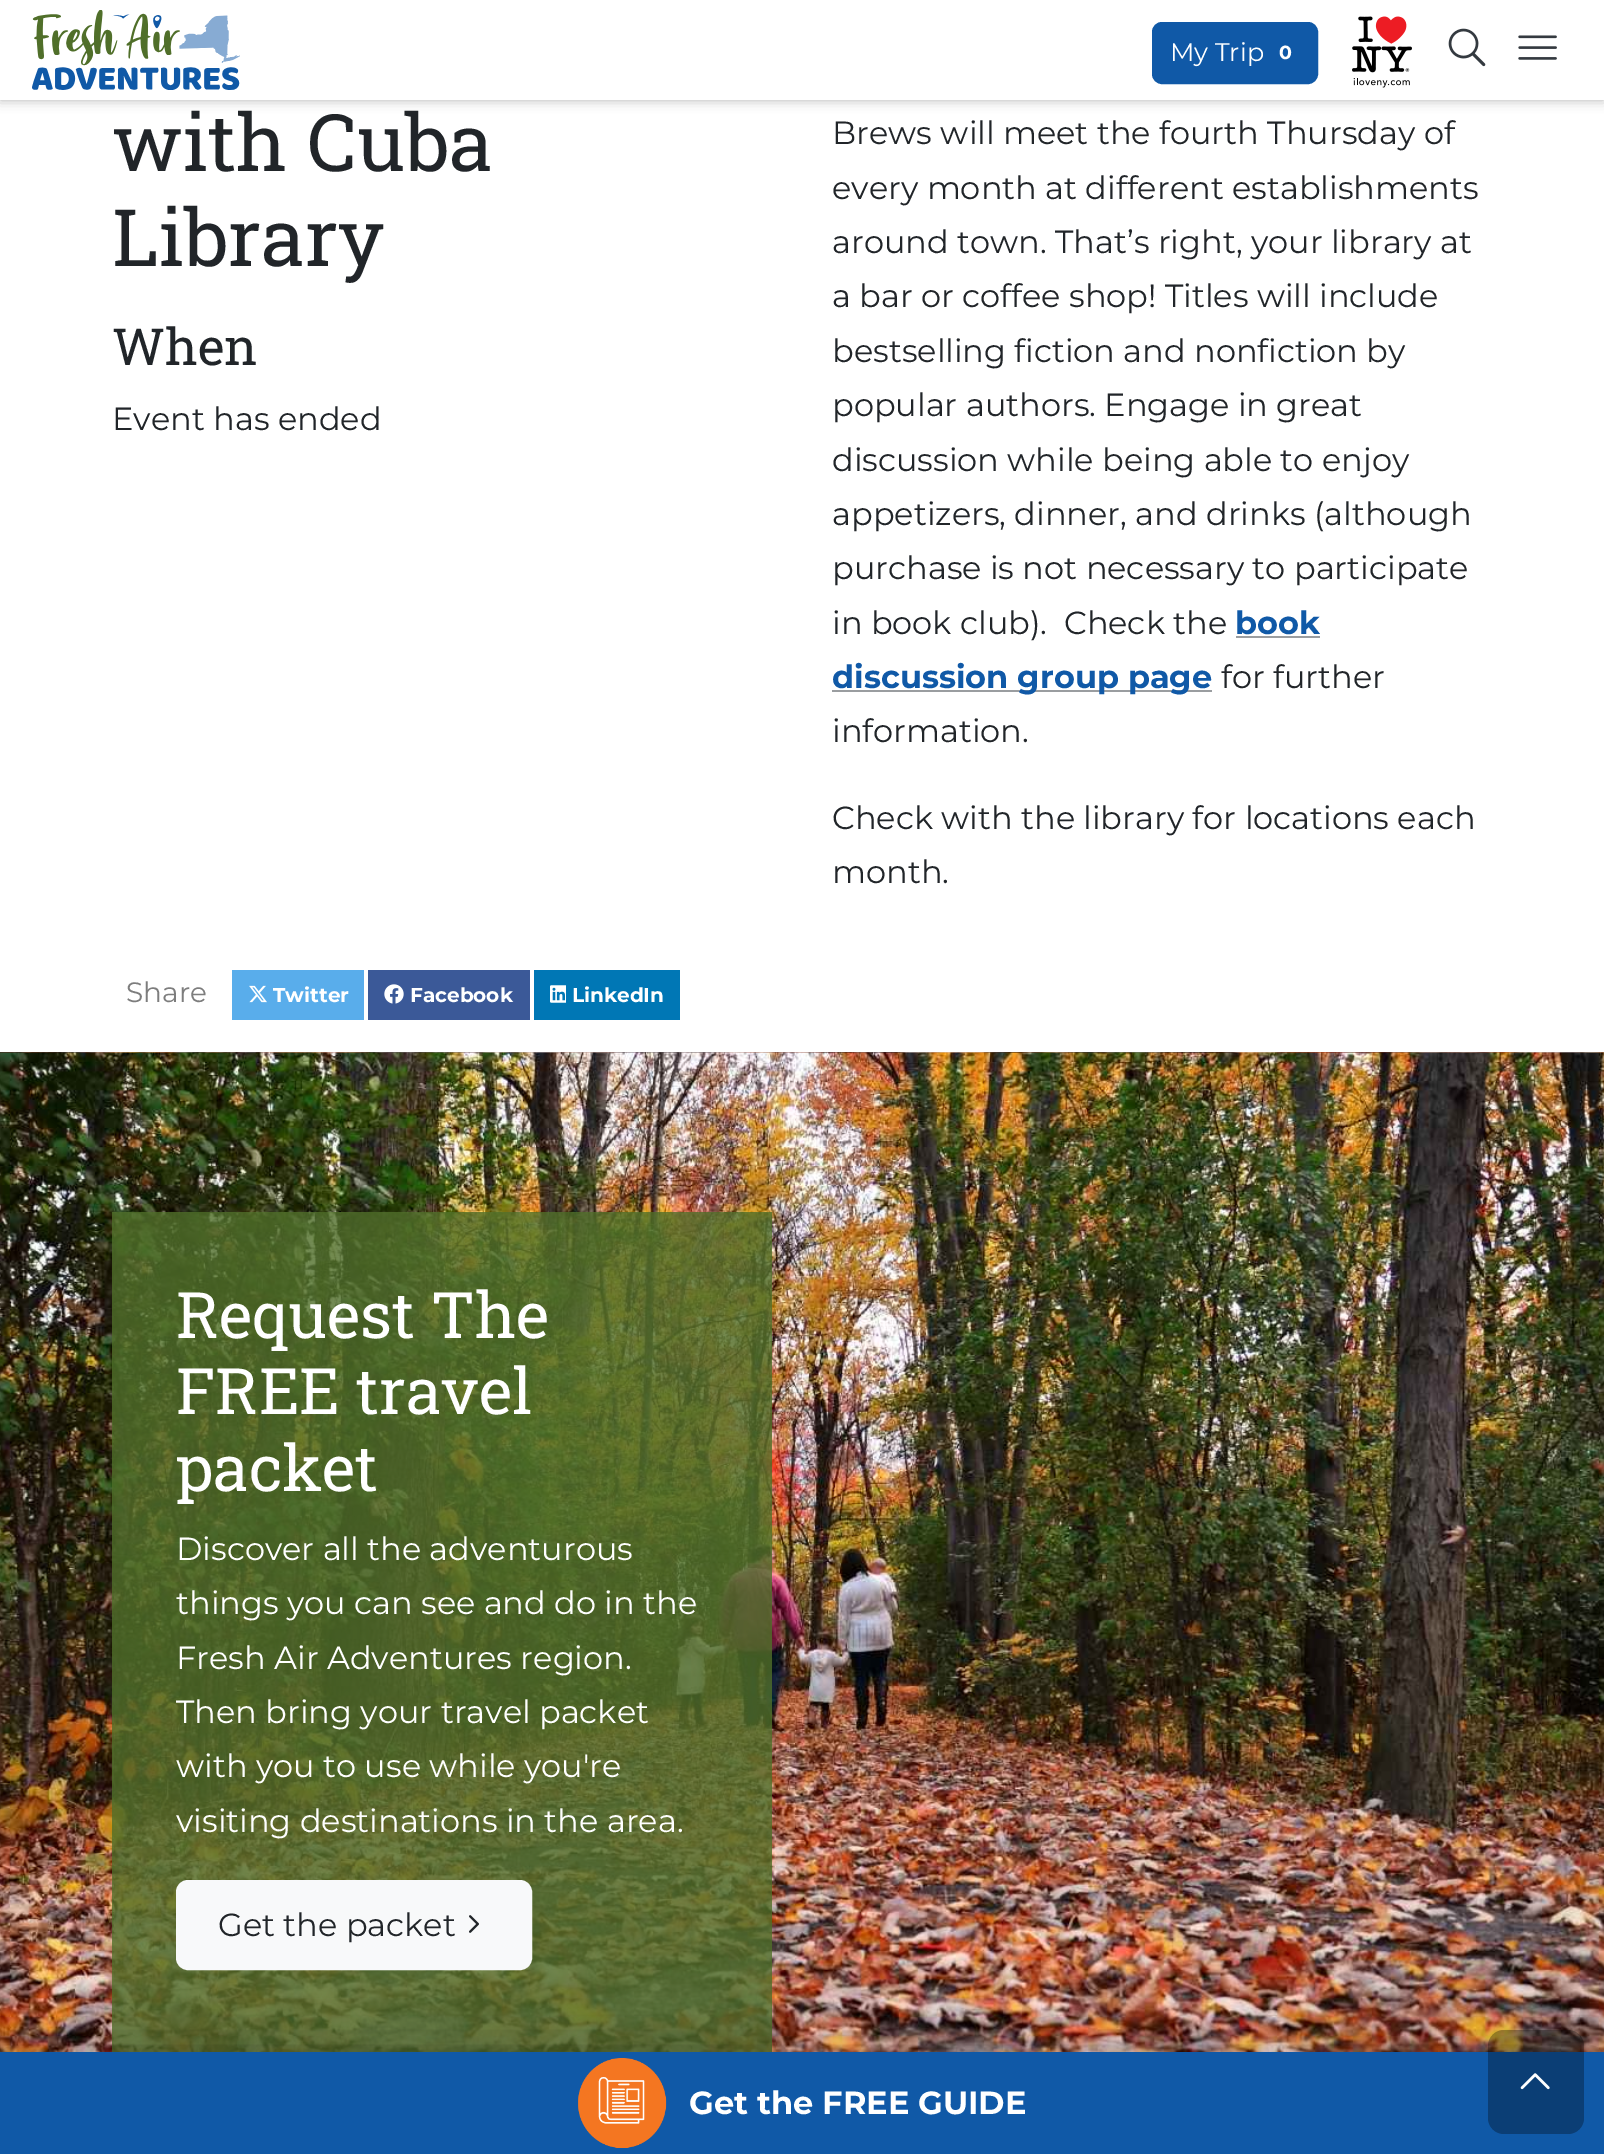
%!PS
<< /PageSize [1604 2154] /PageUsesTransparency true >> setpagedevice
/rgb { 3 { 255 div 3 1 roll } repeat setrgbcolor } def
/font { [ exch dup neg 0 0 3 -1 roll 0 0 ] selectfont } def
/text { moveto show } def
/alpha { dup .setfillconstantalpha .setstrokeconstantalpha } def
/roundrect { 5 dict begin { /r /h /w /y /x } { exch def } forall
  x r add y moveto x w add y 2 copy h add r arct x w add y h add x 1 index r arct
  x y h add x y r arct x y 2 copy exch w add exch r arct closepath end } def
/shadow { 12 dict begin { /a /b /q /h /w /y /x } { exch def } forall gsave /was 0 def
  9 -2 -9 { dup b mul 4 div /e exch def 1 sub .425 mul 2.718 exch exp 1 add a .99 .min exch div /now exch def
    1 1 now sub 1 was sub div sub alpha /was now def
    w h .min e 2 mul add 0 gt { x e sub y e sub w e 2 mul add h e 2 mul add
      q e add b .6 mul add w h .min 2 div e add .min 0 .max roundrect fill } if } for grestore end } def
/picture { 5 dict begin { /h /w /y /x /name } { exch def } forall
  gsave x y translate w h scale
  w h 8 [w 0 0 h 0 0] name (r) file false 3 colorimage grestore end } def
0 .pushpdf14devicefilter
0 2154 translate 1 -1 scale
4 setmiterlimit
255 255 255 rgb
0 0 1604 2154 rectfill
0 0 0 rgb
0 0 1604 100 0 6 0.3 shadow
255 255 255 rgb
0 0 1604 100 rectfill
(img_01.rgb) 32 10 208 80 picture
16 89 167 rgb
1153 23 164 60 9 roundrect gsave fill grestore
2 setlinewidth
stroke
(img_02.rgb) 1352 16 60 72 picture
(img_03.rgb) 1448 28 38 39 picture
(img_04.rgb) 1518 35 39 25 picture
154 157 160 rgb
1236 636 84 2 rectfill
832 690 380 2 rectfill
89 173 235 rgb
232 970 132 50 rectfill
(img_05.rgb) 249 985 18 18 picture
59 89 152 rgb
368 970 162 50 rectfill
(img_06.rgb) 384 984 20 20 picture
0 119 181 rgb
534 970 146 50 rectfill
(img_07.rgb) 550 985 16 18 picture
(img_08.rgb) 0 1052 1604 1000 picture
0.8 alpha
80 111 42 rgb
112 1212 660 840 rectfill
1 alpha
248 249 250 rgb
177 1881 354 88 11 roundrect gsave fill grestore
stroke
(img_09.rgb) 469 1915 10 18 picture
0 0 0 rgb
0 2052 1604 102 0 30 0.3 shadow
16 89 167 rgb
0 2052 1604 102 rectfill
(img_10.rgb) 578 2058 89 90 picture
0.3 alpha
0 0 0 rgb
1488 2030 96 104 16 roundrect fill
1 alpha
(img_11.rgb) 1520 2073 30 17 picture
/Montserrat-Regular 25.5 font
255 255 255 rgb
(My Trip) 1170 61 text
/Montserrat-Bold 19 font
(0) 1279 59 text
/RobotoSlab-Regular 79.25 font
33 37 41 rgb
(with Cuba) 112 171 text
(Library) 112 266 text
/RobotoSlab-Regular 51 font
(When) 112 365 text
/Montserrat-Regular 32 font
(Event has ended) 112 430 text
(Brews will meet the fourth Thursday of) 832 144 text
(every month at different establishments) 832 199 text
(around town. That’s right, your library at) 832 253 text
(a bar or coffee shop! Titles will include) 832 307 text
(bestselling fiction and nonfiction by) 832 362 text
(popular authors. Engage in great) 832 416 text
(discussion while being able to enjoy) 832 471 text
(appetizers, dinner, and drinks \(although) 832 525 text
(purchase is not necessary to participate) 832 579 text
(in book club\).  Check the) 832 634 text
/Montserrat-Bold 32 font
16 89 167 rgb
(book) 1235 634 text
(discussion group page) 832 688 text
/Montserrat-Regular 32 font
33 37 41 rgb
(for further) 1221 688 text
(information.) 832 742 text
(Check with the library for locations each) 832 829 text
(month.) 832 883 text
/Montserrat-Regular 28 font
125 125 125 rgb
(Share) 126 1002 text
/Montserrat-Bold 20 font
255 255 255 rgb
(Twitter) 273 1002 text
(Facebook) 410 1002 text
(LinkedIn) 572 1002 text
/RobotoSlab-Regular 64 font
(Request The) 176 1338 text
(FREE travel) 176 1414 text
(packet) 176 1491 text
/Montserrat-Regular 32 font
(Discover all the adventurous) 176 1560 text
(things you can see and do in the) 176 1614 text
(Fresh Air Adventures region.) 176 1669 text
(Then bring your travel packet) 176 1723 text
(with you to use while you're) 176 1777 text
(visiting destinations in the area.) 176 1832 text
33 37 41 rgb
(Get the packet) 218 1936 text
/Montserrat-Bold 32 font
255 255 255 rgb
(Get the FREE GUIDE) 689 2114 text
.poppdf14devicefilter showpage
